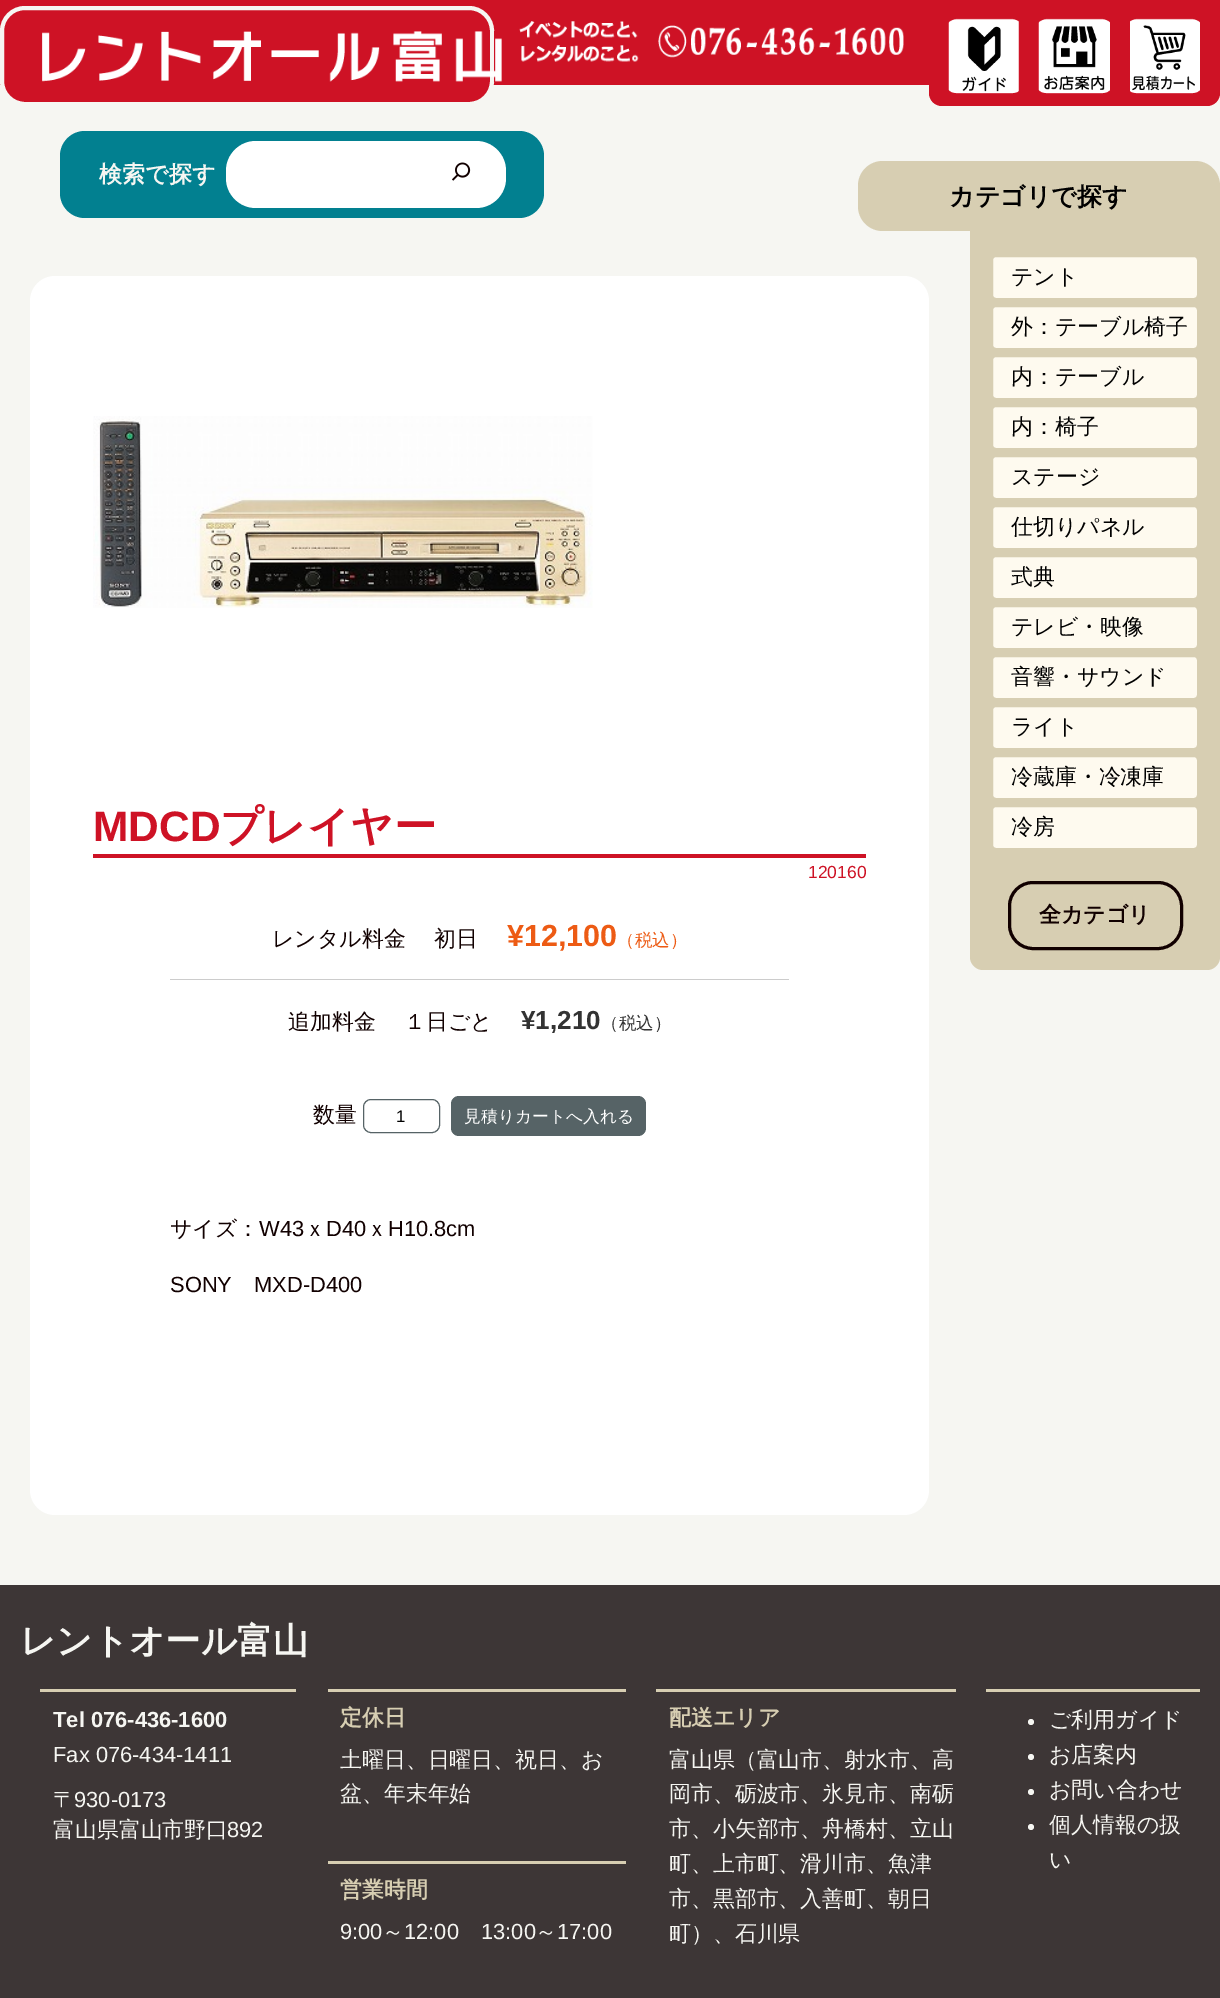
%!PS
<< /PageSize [1220 1998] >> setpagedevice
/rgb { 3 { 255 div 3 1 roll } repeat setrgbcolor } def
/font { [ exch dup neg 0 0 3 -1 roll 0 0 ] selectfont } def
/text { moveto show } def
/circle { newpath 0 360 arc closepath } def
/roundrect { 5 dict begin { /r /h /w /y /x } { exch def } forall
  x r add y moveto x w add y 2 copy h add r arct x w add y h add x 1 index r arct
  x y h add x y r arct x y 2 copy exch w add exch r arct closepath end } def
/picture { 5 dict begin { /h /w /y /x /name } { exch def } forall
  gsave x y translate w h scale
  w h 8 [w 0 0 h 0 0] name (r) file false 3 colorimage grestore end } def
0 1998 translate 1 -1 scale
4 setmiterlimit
246 246 242 rgb
0 0 1220 1998 rectfill
206 18 37 rgb
0 0 1220 85 rectfill
2 8 490 96 23 roundrect gsave fill grestore
246 246 242 rgb
4 setlinewidth
stroke
(img_01.rgb) 42 31 460 51 picture
(img_02.rgb) 519 21 120 41 picture
(img_03.rgb) 658 25 246 33 picture
206 18 37 rgb
929 6 291 100 13 roundrect fill
(img_04.rgb) 948 18 71 76 picture
(img_05.rgb) 1038 18 72 76 picture
(img_06.rgb) 1130 18 70 76 picture
2 128 144 rgb
60 131 484 87 25 roundrect fill
255 255 255 rgb
226 141 280 67 30 roundrect fill
(img_07.rgb) 452 162 19 19 picture
215 206 178 rgb
883 161 moveto 312 0 rlineto 14 0 25 11 25 25 rcurveto 0 45 rlineto -337 0 rlineto -14 0 -25 -11 -25 -25 rcurveto 0 -20 rlineto 0 -14 11 -25 25 -25 rcurveto closepath fill
970 231 moveto 250 0 rlineto 0 726 rlineto 0 7 -6 13 -13 13 rcurveto -224 0 rlineto -7 0 -13 -6 -13 -13 rcurveto closepath fill
254 250 239 rgb
991.5 255.5 207 44 4.5 roundrect gsave fill grestore
215 206 178 rgb
3 setlinewidth
stroke
254 250 239 rgb
991.5 305.5 207 44 4.5 roundrect gsave fill grestore
215 206 178 rgb
stroke
254 250 239 rgb
991.5 355.5 207 44 4.5 roundrect gsave fill grestore
215 206 178 rgb
stroke
254 250 239 rgb
991.5 405.5 207 44 4.5 roundrect gsave fill grestore
215 206 178 rgb
stroke
254 250 239 rgb
991.5 455.5 207 44 4.5 roundrect gsave fill grestore
215 206 178 rgb
stroke
254 250 239 rgb
991.5 505.5 207 44 4.5 roundrect gsave fill grestore
215 206 178 rgb
stroke
254 250 239 rgb
991.5 555.5 207 44 4.5 roundrect gsave fill grestore
215 206 178 rgb
stroke
254 250 239 rgb
991.5 605.5 207 44 4.5 roundrect gsave fill grestore
215 206 178 rgb
stroke
254 250 239 rgb
991.5 655.5 207 44 4.5 roundrect gsave fill grestore
215 206 178 rgb
stroke
254 250 239 rgb
991.5 705.5 207 44 4.5 roundrect gsave fill grestore
215 206 178 rgb
stroke
254 250 239 rgb
991.5 755.5 207 44 4.5 roundrect gsave fill grestore
215 206 178 rgb
stroke
254 250 239 rgb
991.5 805.5 207 44 4.5 roundrect gsave fill grestore
215 206 178 rgb
stroke
17 0 0 rgb
1009.5 882.5 172 66 23.5 roundrect stroke
255 255 255 rgb
30 276 899 1239 25 roundrect fill
(img_08.rgb) 93 416 500 192 picture
206 18 37 rgb
93 854 773 4 rectfill
204 204 204 rgb
170 979 619 1 rectfill
86 99 102 rgb
1 setlinewidth
363.5 1099.5 76 33 7.5 roundrect stroke
451 1096 195 40 8 roundrect fill
61 54 54 rgb
0 1585 1220 413 rectfill
215 206 178 rgb
40 1689 256 3 rectfill
328 1689 298 3 rectfill
328 1861 298 3 rectfill
656 1689 300 3 rectfill
986 1689 214 3 rectfill
246 246 242 rgb
1031 1722 3 circle fill
1031 1757 3 circle fill
1031 1792 3 circle fill
1031 1827 3 circle fill
/WenQuanYiZenHei-Bold 23 font
(検索で探す) 99 182 text
/WenQuanYiZenHei-Bold 25 font
0 0 0 rgb
(カテゴリで探す) 949 205 text
/WenQuanYiZenHei-Medium 21.9 font
(テント) 1011 284 text
(外：テーブル椅子) 1011 334 text
(内：テーブル) 1011 384 text
(内：椅子) 1011 434 text
(ステージ) 1011 484 text
(仕切りパネル) 1011 534 text
(式典) 1011 584 text
(テレビ・映像) 1011 634 text
(音響・サウンド) 1011 684 text
(ライト) 1011 734 text
(冷蔵庫・冷凍庫) 1011 784 text
(冷房) 1011 834 text
/WenQuanYiZenHei-Bold 21.9 font
17 0 0 rgb
(全カテゴリ) 1039 922 text
/LiberationSans-Bold 42.5 font
206 18 37 rgb
(MDCD) 93 841 text
/WenQuanYiZenHei-Bold 42.5 font
(プレイヤー) 220 841 text
/LiberationSans-Regular 17.5 font
(120160) 808 878 text
/WenQuanYiZenHei-Medium 21.9 font
17 0 0 rgb
(レンタル料金 　初日) 272 946 text
/LiberationSans-Bold 30.5 font
237 91 20 rgb
(¥12,100) 507 946 text
/WenQuanYiZenHei-Medium 17.5 font
(（税込）) 617 946 text
/WenQuanYiZenHei-Medium 21.9 font
17 0 0 rgb
(追加料金 　１日ごと) 288 1029 text
/LiberationSans-Bold 26 font
51 51 51 rgb
(¥1,210) 521 1029 text
/WenQuanYiZenHei-Medium 17.5 font
(（税込）) 601 1029 text
/WenQuanYiZenHei-Medium 21.9 font
17 0 0 rgb
(数量) 313 1122 text
/LiberationSans-Regular 16.75 font
0 0 0 rgb
(1) 396 1122 text
/WenQuanYiZenHei-Medium 16.75 font
255 255 255 rgb
(見積りカートへ入れる) 464 1122 text
/WenQuanYiZenHei-Medium 21.9 font
17 0 0 rgb
(サイズ：) 170 1236 text
/LiberationSans-Regular 21.9 font
(W43) 259 1236 text
/WenQuanYiZenHei-Medium 21.9 font
(ｘ) 304 1236 text
/LiberationSans-Regular 21.9 font
(D40) 326 1236 text
/WenQuanYiZenHei-Medium 21.9 font
(ｘ) 366 1236 text
/LiberationSans-Regular 21.9 font
(H10.8cm) 388 1236 text
(SONY) 170 1292 text
(MXD-D400) 254 1292 text
/WenQuanYiZenHei-Bold 35.5 font
246 246 242 rgb
(レントオール富山) 20 1653 text
/LiberationSans-Bold 21.9 font
(Tel 076-436-1600) 53 1727 text
/LiberationSans-Regular 21.9 font
(Fax 076-434-1411) 53 1762 text
/WenQuanYiZenHei-Medium 21.9 font
(〒) 53 1807 text
/LiberationSans-Regular 21.9 font
(930-0173) 74 1807 text
/WenQuanYiZenHei-Medium 21.9 font
(富山県富山市野口) 53 1837 text
/LiberationSans-Regular 21.9 font
(892) 227 1837 text
/WenQuanYiZenHei-Bold 21.9 font
215 206 178 rgb
(定休日) 340 1725 text
/WenQuanYiZenHei-Medium 21.9 font
246 246 242 rgb
(土曜日、日曜日、祝日、お) 340 1767 text
(盆、年末年始) 340 1801 text
/WenQuanYiZenHei-Bold 21.9 font
215 206 178 rgb
(営業時間) 340 1897 text
/LiberationSans-Regular 21.9 font
246 246 242 rgb
(9:00) 340 1939 text
/WenQuanYiZenHei-Medium 21.9 font
(～) 382 1939 text
/LiberationSans-Regular 21.9 font
(12:00) 404 1939 text
(13:00) 481 1939 text
/WenQuanYiZenHei-Medium 21.9 font
(～) 535 1939 text
/LiberationSans-Regular 21.9 font
(17:00) 557 1939 text
/WenQuanYiZenHei-Bold 21.9 font
215 206 178 rgb
(配送エリア) 669 1725 text
/WenQuanYiZenHei-Medium 21.9 font
246 246 242 rgb
(富山県（富山市、射水市、高) 669 1767 text
(岡市、砺波市、氷見市、南砺) 669 1801 text
(市、小矢部市、舟橋村、立山) 669 1836 text
(町、上市町、滑川市、魚津) 669 1871 text
(市、黒部市、入善町、朝日) 669 1906 text
(町）、石川県) 669 1941 text
(ご利用ガイド) 1049 1727 text
(お店案内) 1049 1762 text
(お問い合わせ) 1049 1797 text
(個人情報の扱) 1049 1832 text
(い) 1049 1867 text
showpage
